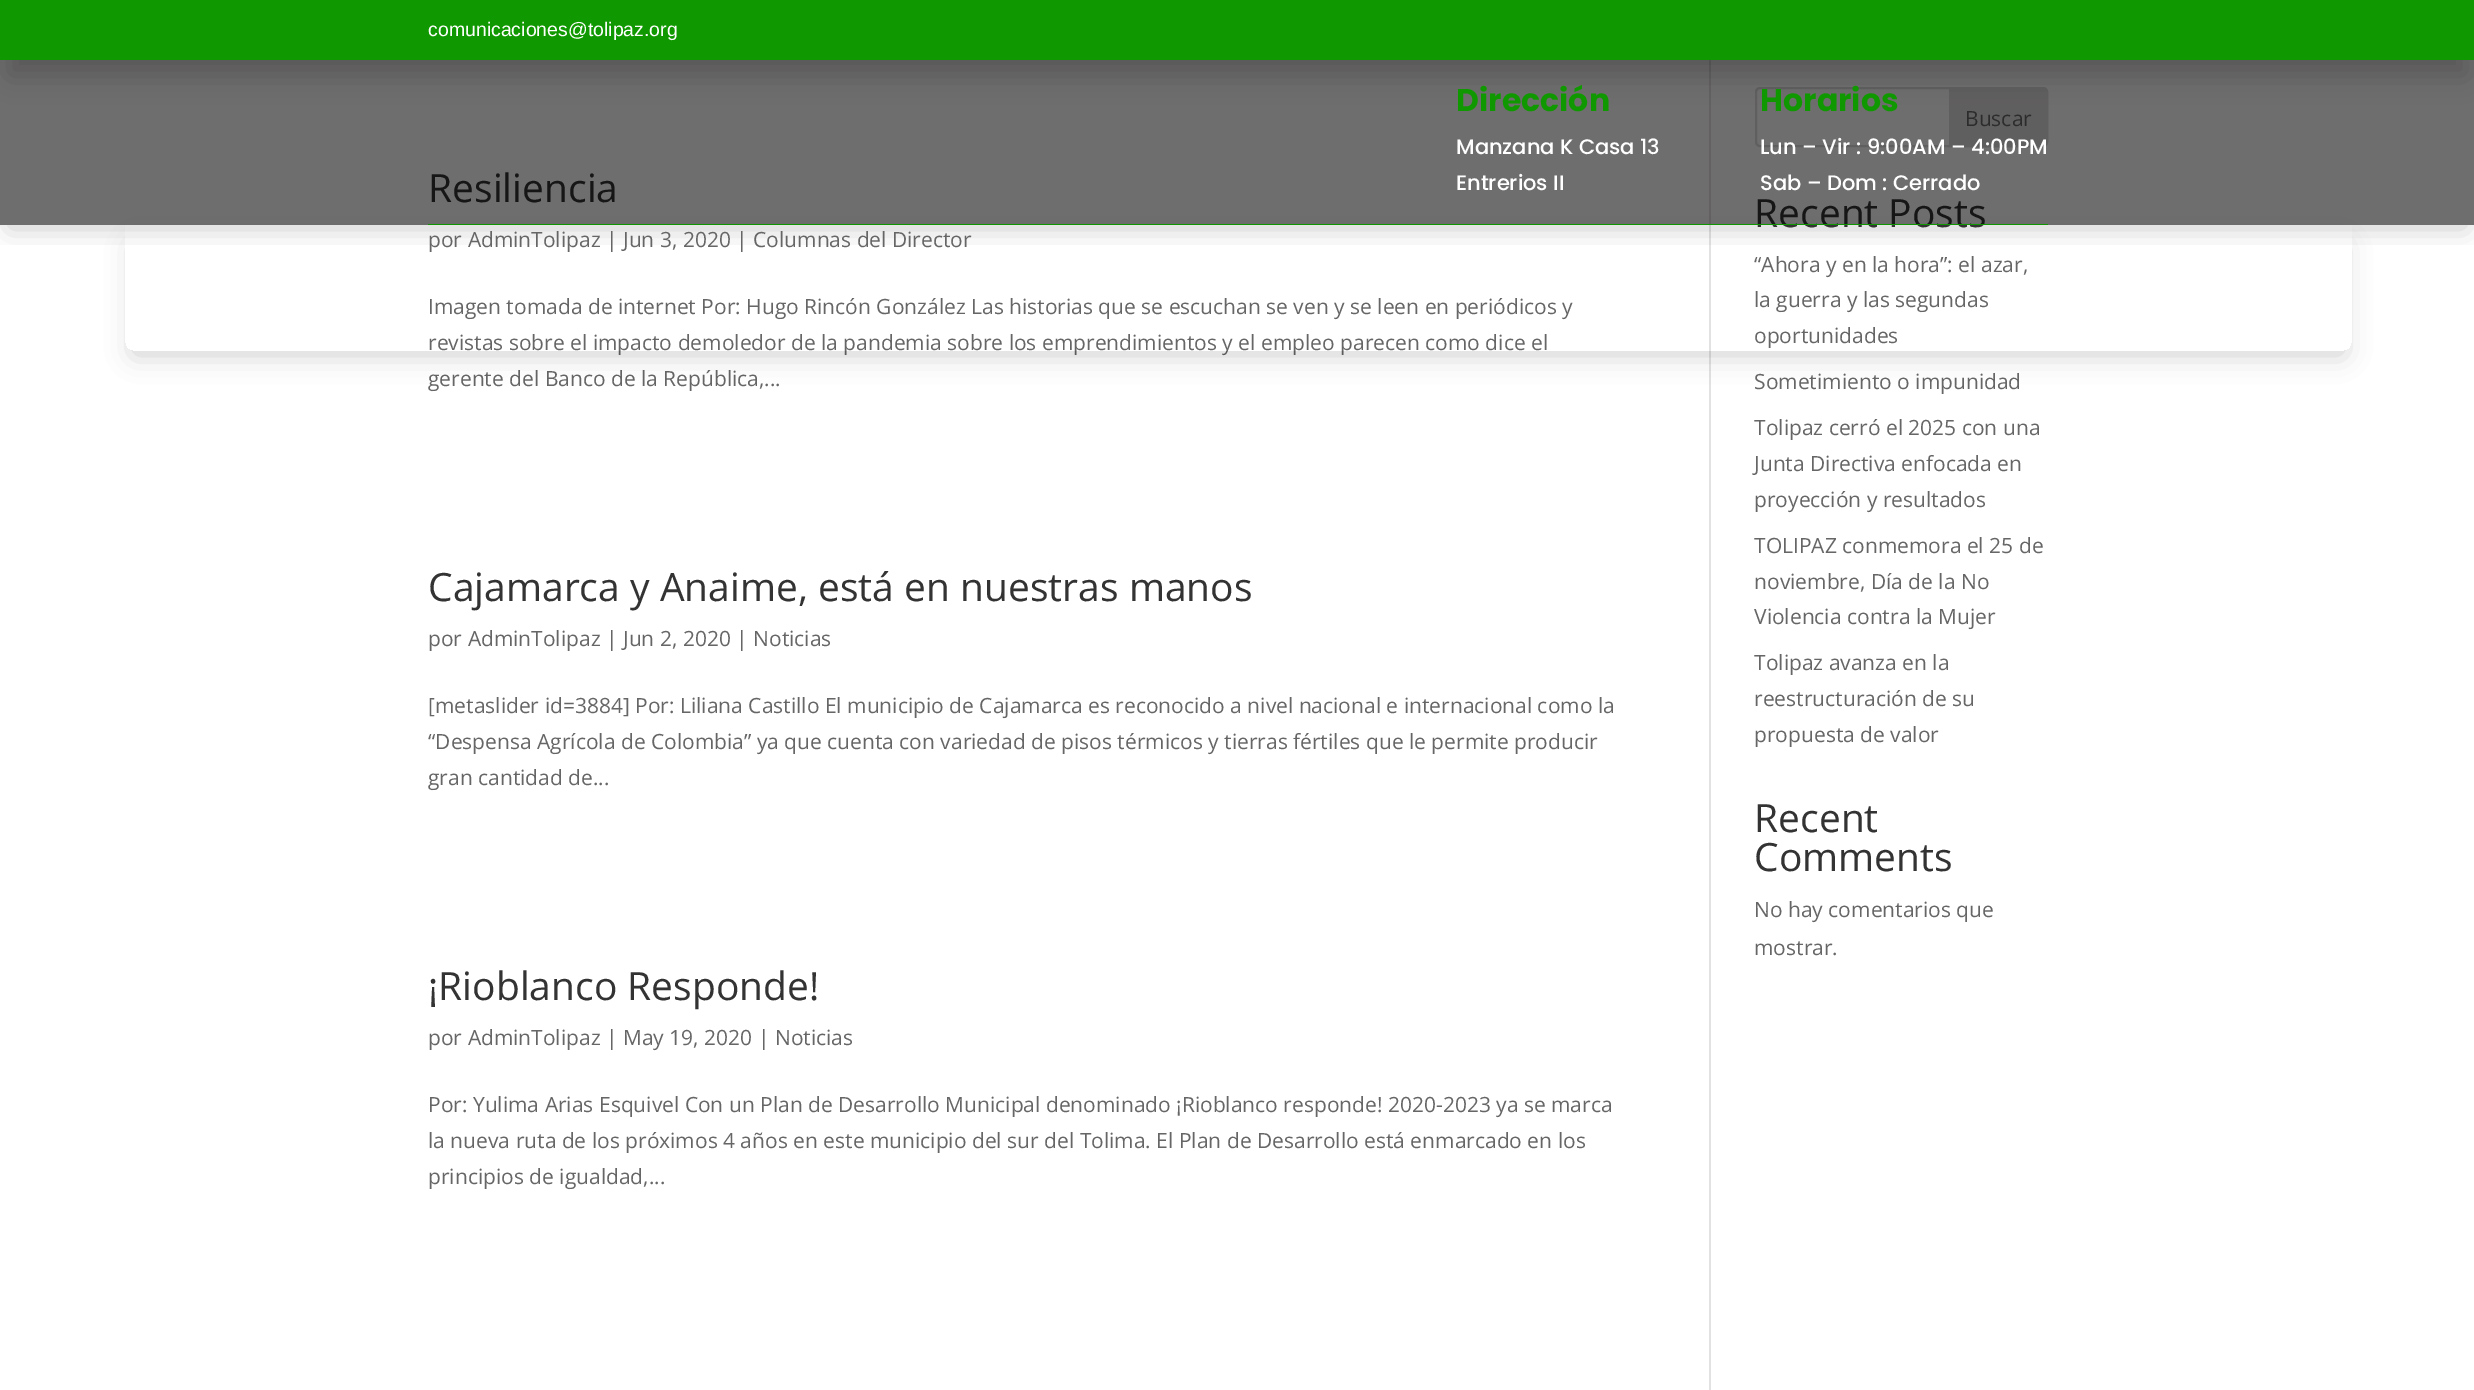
%!PS
<< /PageSize [2474 1390] /PageUsesTransparency true >> setpagedevice
/rgb { 3 { 255 div 3 1 roll } repeat setrgbcolor } def
/font { [ exch dup neg 0 0 3 -1 roll 0 0 ] selectfont } def
/text { moveto show } def
/alpha { dup .setfillconstantalpha .setstrokeconstantalpha } def
/roundrect { 5 dict begin { /r /h /w /y /x } { exch def } forall
  x r add y moveto x w add y 2 copy h add r arct x w add y h add x 1 index r arct
  x y h add x y r arct x y 2 copy exch w add exch r arct closepath end } def
/shadow { 12 dict begin { /a /b /q /h /w /y /x } { exch def } forall gsave /was 0 def
  9 -2 -9 { dup b mul 4 div /e exch def 1 sub .425 mul 2.718 exch exp 1 add a .99 .min exch div /now exch def
    1 1 now sub 1 was sub div sub alpha /was now def
    w h .min e 2 mul add 0 gt { x e sub y e sub w e 2 mul add h e 2 mul add
      q e add b .6 mul add w h .min 2 div e add .min 0 .max roundrect fill } if } for grestore end } def
0 .pushpdf14devicefilter
0 1390 translate 1 -1 scale
4 setmiterlimit
255 255 255 rgb
0 0 2474 1390 rectfill
226 226 226 rgb
1709 60 2 1330 rectfill
221 221 221 rgb
2 setlinewidth
1756 88 291 58 4 roundrect stroke
1950 88 moveto 93 0 rlineto 2 0 4 2 4 4 rcurveto 0 50 rlineto 0 2 -2 4 -4 4 rcurveto -93 0 rlineto closepath gsave fill grestore
stroke
0 0 0 rgb
9 33 2457 42 0 13.5 0.2 shadow
16 152 0 rgb
0 0 2474 60 rectfill
gsave
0 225 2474 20 rectclip
0 0 0 rgb
9 81 2457 147 0 13.5 0.2 shadow
grestore
/LiberationSans-Regular 19.5 font
255 255 255 rgb
(comunicaciones@tolipaz.org) 428 36 text
/OpenSans-Regular 39 font
51 51 51 rgb
(Resiliencia) 428 202 text
/OpenSans-Regular 21 font
102 102 102 rgb
(por AdminTolipaz | Jun 3, 2020 | Columnas del Director) 428 247 text
(Imagen tomada de internet Por: Hugo Rincón González Las historias que se escuchan se ven y se leen en periódicos y) 428 314 text
(revistas sobre el impacto demoledor de la pandemia sobre los emprendimientos y el empleo parecen como dice el) 428 350 text
(gerente del Banco de la República,...) 428 386 text
/OpenSans-Regular 39 font
51 51 51 rgb
(Cajamarca y Anaime, está en nuestras manos) 428 601 text
/OpenSans-Regular 21 font
102 102 102 rgb
(por AdminTolipaz | Jun 2, 2020 | Noticias) 428 646 text
([metaslider id=3884] Por: Liliana Castillo El municipio de Cajamarca es reconocido a nivel nacional e internacional como la) 428 713 text
(“Despensa Agrícola de Colombia” ya que cuenta con variedad de pisos térmicos y tierras fértiles que le permite producir) 428 749 text
(gran cantidad de...) 428 785 text
/OpenSans-Regular 39 font
51 51 51 rgb
(¡Rioblanco Responde!) 428 1000 text
/OpenSans-Regular 21 font
102 102 102 rgb
(por AdminTolipaz | May 19, 2020 | Noticias) 428 1045 text
(Por: Yulima Arias Esquivel Con un Plan de Desarrollo Municipal denominado ¡Rioblanco responde! 2020-2023 ya se marca) 428 1112 text
(la nueva ruta de los próximos 4 años en este municipio del sur del Tolima. El Plan de Desarrollo está enmarcado en los) 428 1148 text
(principios de igualdad,...) 428 1184 text
(Buscar) 1965 126 text
/OpenSans-Regular 39 font
51 51 51 rgb
(Recent Posts) 1754 227 text
0.57 alpha
2 0 0 rgb
0 60 2474 165 rectfill
1 alpha
16 152 0 rgb
428 224 1620 1 rectfill
gsave
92 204 moveto 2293 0 rlineto 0 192 rlineto -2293 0 rlineto closepath 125 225 moveto 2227 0 rlineto 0 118 rlineto 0 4.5 -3.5 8 -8 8 rcurveto -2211 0 rlineto -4.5 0 -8 -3.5 -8 -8 rcurveto closepath eoclip newpath
0 0 0 rgb
134 246 2209 108 0 13.5 0.2 shadow
grestore
/Poppins-Medium 21 font
255 255 255 rgb
(Sab – Dom : Cerrado) 1760 190 text
(Lun – Vir : 9:00AM – 4:00PM) 1760 154 text
/Poppins-Bold 31.5 font
16 152 0 rgb
(Horarios) 1760 111 text
/Poppins-Medium 21 font
255 255 255 rgb
(Entrerios II) 1456 190 text
(Manzana K Casa 13) 1456 154 text
/Poppins-Bold 31.5 font
16 152 0 rgb
(Dirección) 1456 111 text
/OpenSans-Regular 21 font
102 102 102 rgb
(“Ahora y en la hora”: el azar,) 1754 272 text
(la guerra y las segundas) 1754 307 text
(oportunidades) 1754 343 text
(Sometimiento o impunidad) 1754 389 text
(Tolipaz cerró el 2025 con una) 1754 435 text
(Junta Directiva enfocada en) 1754 471 text
(proyección y resultados) 1754 507 text
(TOLIPAZ conmemora el 25 de) 1754 553 text
(noviembre, Día de la No) 1754 589 text
(Violencia contra la Mujer) 1754 624 text
(Tolipaz avanza en la) 1754 670 text
(reestructuración de su) 1754 706 text
(propuesta de valor) 1754 742 text
/OpenSans-Regular 39 font
51 51 51 rgb
(Recent) 1754 832 text
(Comments) 1754 871 text
/OpenSans-Regular 21 font
102 102 102 rgb
(No hay comentarios que) 1754 917 text
(mostrar.) 1754 955 text
.poppdf14devicefilter showpage
